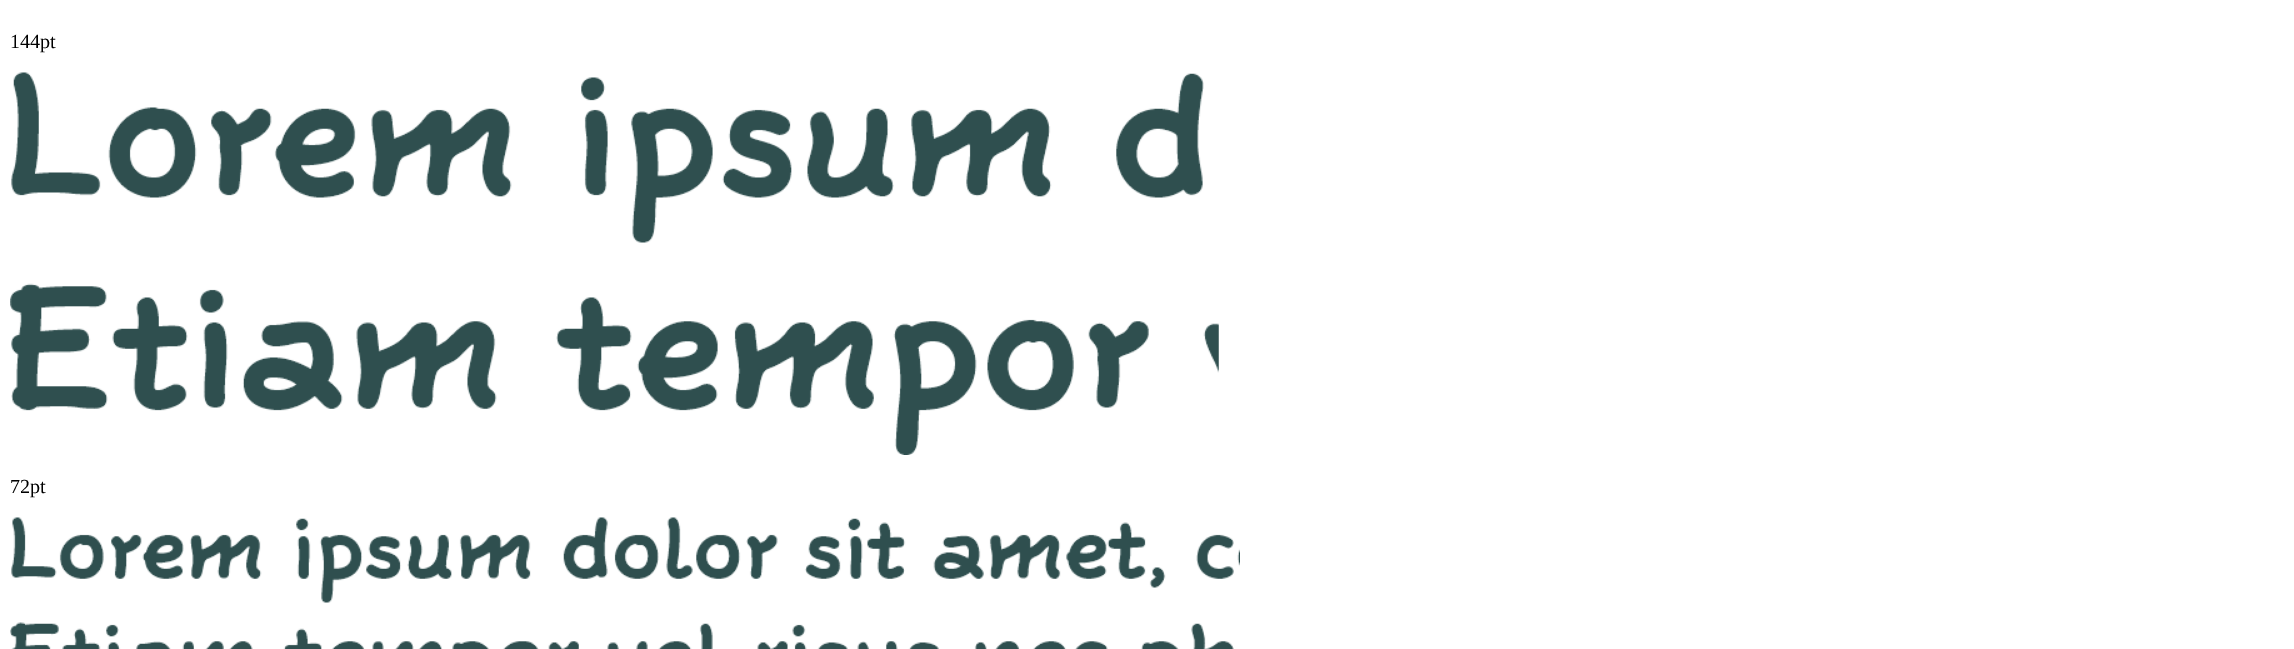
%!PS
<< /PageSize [2294 649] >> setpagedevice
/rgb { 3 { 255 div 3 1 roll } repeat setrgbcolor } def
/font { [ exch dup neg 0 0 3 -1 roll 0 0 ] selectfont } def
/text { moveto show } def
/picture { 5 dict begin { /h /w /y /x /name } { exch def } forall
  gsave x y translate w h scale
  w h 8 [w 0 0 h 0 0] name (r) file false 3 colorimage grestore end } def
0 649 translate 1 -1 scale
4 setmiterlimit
255 255 255 rgb
0 0 2294 649 rectfill
(img_01.rgb) 10 72 1209 383 picture
(img_02.rgb) 10 517 1230 132 picture
/LiberationSerif-Regular 20 font
0 0 0 rgb
(144pt) 10 48 text
(72pt) 10 493 text
showpage
